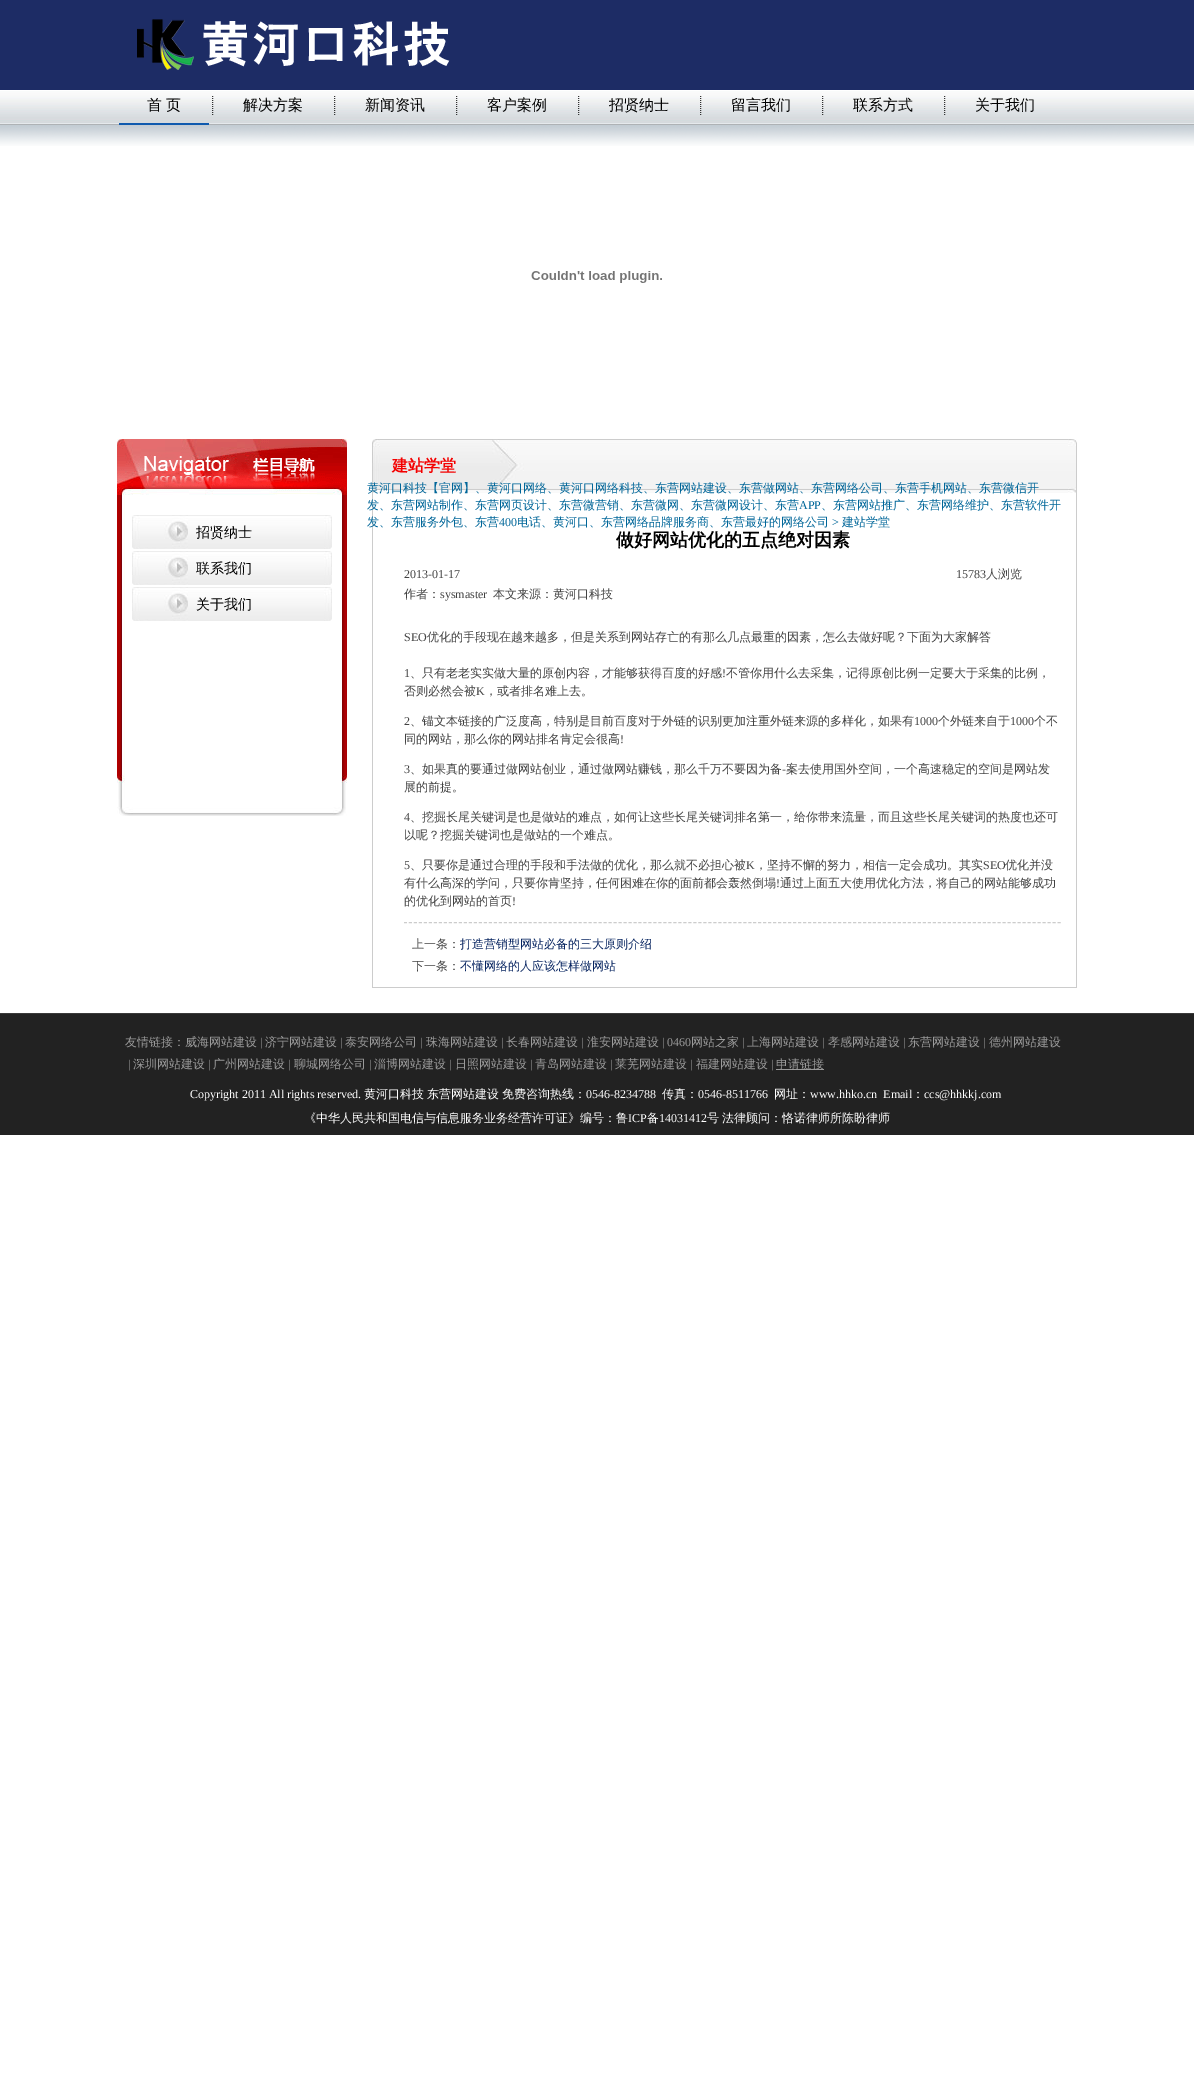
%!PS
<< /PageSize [1194 2095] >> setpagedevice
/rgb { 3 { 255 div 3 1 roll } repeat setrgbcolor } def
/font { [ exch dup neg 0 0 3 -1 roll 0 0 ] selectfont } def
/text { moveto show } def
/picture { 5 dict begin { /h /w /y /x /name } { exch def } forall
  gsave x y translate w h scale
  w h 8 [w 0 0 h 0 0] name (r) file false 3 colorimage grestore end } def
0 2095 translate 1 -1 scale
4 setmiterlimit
255 255 255 rgb
0 0 1194 2095 rectfill
29 44 101 rgb
0 0 1194 90 rectfill
(img_01.rgb) 137 19 313 51 picture
(img_02.rgb) 0 91 1194 34 picture
14 90 174 rgb
119 123 90 2 rectfill
51 51 51 rgb
[1 1] 0 setdash
212.5 96 moveto 0 20 rlineto stroke
334.5 96 moveto 0 20 rlineto stroke
456.5 96 moveto 0 20 rlineto stroke
578.5 96 moveto 0 20 rlineto stroke
700.5 96 moveto 0 20 rlineto stroke
822.5 96 moveto 0 20 rlineto stroke
944.5 96 moveto 0 20 rlineto stroke
(img_03.rgb) 0 125 1194 21 picture
(img_04.rgb) 531 271 131 12 picture
(img_05.rgb) 117 439 230 56 picture
(img_06.rgb) 117 495 230 280 picture
(img_07.rgb) 132 515 200 34 picture
(img_07.rgb) 132 551 200 34 picture
(img_07.rgb) 132 587 200 34 picture
(img_08.rgb) 117 775 230 41 picture
(img_09.rgb) 372 439 705 54 picture
204 204 204 rgb
1076 493 1 495 rectfill
372 987 705 1 rectfill
372 493 1 495 rectfill
[3 1.99] 0 setdash
404 922.5 moveto 657 0 rlineto stroke
34 34 34 rgb
0 1014 1194 121 rectfill
58 58 58 rgb
0 1013 1194 1 rectfill
154 154 154 rgb
776 1069 48 1 rectfill
/WenQuanYiZenHei-Medium 15 font
0 0 0 rgb
(首 页) 147 110 text
(解决方案) 243 110 text
(新闻资讯) 365 110 text
(客户案例) 487 110 text
(招贤纳士) 609 110 text
(留言我们) 731 110 text
(联系方式) 853 110 text
(关于我们) 975 110 text
/WenQuanYiZenHei-Medium 14 font
(招贤纳士) 196 537 text
(联系我们) 196 573 text
(关于我们) 196 609 text
/WenQuanYiZenHei-Bold 16 font
244 0 0 rgb
(建站学堂) 392 471 text
/WenQuanYiZenHei-Medium 12 font
0 102 153 rgb
(黄河口科技【官网】、黄河口网络、黄河口网络科技、东营网站建设、东营做网站、东营网络公司、东营手机网站、东营微信开) 367 492 text
(发、东营网站制作、东营网页设计、东营微营销、东营微网、东营微网设计、东营) 367 509 text
/LiberationSerif-Regular 12 font
(APP) 799 509 text
/WenQuanYiZenHei-Medium 12 font
(、东营网站推广、东营网络维护、东营软件开) 821 509 text
(发、东营服务外包、东营) 367 526 text
/LiberationSerif-Regular 12 font
(400) 499 526 text
/WenQuanYiZenHei-Medium 12 font
(电话、黄河口、东营网络品牌服务商、东营最好的网络公司) 517 526 text
/LiberationSerif-Regular 12 font
(>) 832 526 text
/WenQuanYiZenHei-Medium 12 font
(建站学堂) 842 526 text
/WenQuanYiZenHei-Bold 18 font
0 0 0 rgb
(做好网站优化的五点绝对因素) 616 546 text
/LiberationSerif-Regular 12 font
66 66 66 rgb
(2013-01-17) 404 578 text
(15783) 956 578 text
/WenQuanYiZenHei-Medium 12 font
(人浏览) 986 578 text
(作者：) 404 598 text
/LiberationSerif-Regular 12 font
(sysmaster) 440 598 text
/WenQuanYiZenHei-Medium 12 font
(本文来源：黄河口科技) 493 598 text
/LiberationSerif-Regular 12 font
(SEO) 404 641 text
/WenQuanYiZenHei-Medium 12 font
(优化的手段现在越来越多，但是关系到网站存亡的有那么几点最重的因素，怎么去做好呢？下面为大家解答) 427 641 text
/LiberationSerif-Regular 12 font
(1) 404 677 text
/WenQuanYiZenHei-Medium 12 font
(、只有老老实实做大量的原创内容，才能够获得百度的好感) 410 677 text
/LiberationSerif-Regular 12 font
(!) 722 677 text
/WenQuanYiZenHei-Medium 12 font
(不管你用什么去采集，记得原创比例一定要大于采集的比例，) 726 677 text
(否则必然会被) 404 695 text
/LiberationSerif-Regular 12 font
(K) 476 695 text
/WenQuanYiZenHei-Medium 12 font
(，或者排名难上去。) 485 695 text
/LiberationSerif-Regular 12 font
(2) 404 725 text
/WenQuanYiZenHei-Medium 12 font
(、锚文本链接的广泛度高，特别是目前百度对于外链的识别更加注重外链来源的多样化，如果有) 410 725 text
/LiberationSerif-Regular 12 font
(1000) 914 725 text
/WenQuanYiZenHei-Medium 12 font
(个外链来自于) 938 725 text
/LiberationSerif-Regular 12 font
(1000) 1010 725 text
/WenQuanYiZenHei-Medium 12 font
(个不) 1034 725 text
(同的网站，那么你的网站排名肯定会很高) 404 743 text
/LiberationSerif-Regular 12 font
(!) 620 743 text
(3) 404 773 text
/WenQuanYiZenHei-Medium 12 font
(、如果真的要通过做网站创业，通过做网站赚钱，那么千万不要因为备) 410 773 text
/LiberationSerif-Regular 12 font
(-) 782 773 text
/WenQuanYiZenHei-Medium 12 font
(案去使用国外空间，一个高速稳定的空间是网站发) 786 773 text
(展的前提。) 404 791 text
/LiberationSerif-Regular 12 font
(4) 404 821 text
/WenQuanYiZenHei-Medium 12 font
(、挖掘长尾关键词是也是做站的难点，如何让这些长尾关键词排名第一，给你带来流量，而且这些长尾关键词的热度也还可) 410 821 text
(以呢？挖掘关键词也是做站的一个难点。) 404 839 text
/LiberationSerif-Regular 12 font
(5) 404 869 text
/WenQuanYiZenHei-Medium 12 font
(、只要你是通过合理的手段和手法做的优化，那么就不必担心被) 410 869 text
/LiberationSerif-Regular 12 font
(K) 746 869 text
/WenQuanYiZenHei-Medium 12 font
(，坚持不懈的努力，相信一定会成功。其实) 755 869 text
/LiberationSerif-Regular 12 font
(SEO) 983 869 text
/WenQuanYiZenHei-Medium 12 font
(优化并没) 1005 869 text
(有什么高深的学问，只要你肯坚持，任何困难在你的面前都会轰然倒塌) 404 887 text
/LiberationSerif-Regular 12 font
(!) 776 887 text
/WenQuanYiZenHei-Medium 12 font
(通过上面五大使用优化方法，将自己的网站能够成功) 780 887 text
(的优化到网站的首页) 404 905 text
/LiberationSerif-Regular 12 font
(!) 512 905 text
/WenQuanYiZenHei-Medium 12 font
(上一条：) 412 948 text
8 37 97 rgb
(打造营销型网站必备的三大原则介绍) 460 948 text
66 66 66 rgb
(下一条：) 412 970 text
8 37 97 rgb
(不懂网络的人应该怎样做网站) 460 970 text
154 154 154 rgb
(友情链接：威海网站建设) 125 1046 text
/LiberationSerif-Regular 12 font
(|) 260 1046 text
/WenQuanYiZenHei-Medium 12 font
(济宁网站建设) 265 1046 text
/LiberationSerif-Regular 12 font
(|) 340 1046 text
/WenQuanYiZenHei-Medium 12 font
(泰安网络公司) 345 1046 text
/LiberationSerif-Regular 12 font
(|) 420 1046 text
/WenQuanYiZenHei-Medium 12 font
(珠海网站建设) 426 1046 text
/LiberationSerif-Regular 12 font
(|) 501 1046 text
/WenQuanYiZenHei-Medium 12 font
(长春网站建设) 506 1046 text
/LiberationSerif-Regular 12 font
(|) 581 1046 text
/WenQuanYiZenHei-Medium 12 font
(淮安网站建设) 587 1046 text
/LiberationSerif-Regular 12 font
(| 0460) 662 1046 text
/WenQuanYiZenHei-Medium 12 font
(网站之家) 691 1046 text
/LiberationSerif-Regular 12 font
(|) 742 1046 text
/WenQuanYiZenHei-Medium 12 font
(上海网站建设) 747 1046 text
/LiberationSerif-Regular 12 font
(|) 822 1046 text
/WenQuanYiZenHei-Medium 12 font
(孝感网站建设) 828 1046 text
/LiberationSerif-Regular 12 font
(|) 903 1046 text
/WenQuanYiZenHei-Medium 12 font
(东营网站建设) 908 1046 text
/LiberationSerif-Regular 12 font
(|) 983 1046 text
/WenQuanYiZenHei-Medium 12 font
(德州网站建设) 989 1046 text
/LiberationSerif-Regular 12 font
(|) 128 1068 text
/WenQuanYiZenHei-Medium 12 font
(深圳网站建设) 133 1068 text
/LiberationSerif-Regular 12 font
(|) 208 1068 text
/WenQuanYiZenHei-Medium 12 font
(广州网站建设) 213 1068 text
/LiberationSerif-Regular 12 font
(|) 288 1068 text
/WenQuanYiZenHei-Medium 12 font
(聊城网络公司) 294 1068 text
/LiberationSerif-Regular 12 font
(|) 369 1068 text
/WenQuanYiZenHei-Medium 12 font
(淄博网站建设) 374 1068 text
/LiberationSerif-Regular 12 font
(|) 449 1068 text
/WenQuanYiZenHei-Medium 12 font
(日照网站建设) 455 1068 text
/LiberationSerif-Regular 12 font
(|) 530 1068 text
/WenQuanYiZenHei-Medium 12 font
(青岛网站建设) 535 1068 text
/LiberationSerif-Regular 12 font
(|) 610 1068 text
/WenQuanYiZenHei-Medium 12 font
(莱芜网站建设) 615 1068 text
/LiberationSerif-Regular 12 font
(|) 690 1068 text
/WenQuanYiZenHei-Medium 12 font
(福建网站建设) 696 1068 text
/LiberationSerif-Regular 12 font
(|) 771 1068 text
/WenQuanYiZenHei-Medium 12 font
(申请链接) 776 1068 text
/LiberationSerif-Regular 12 font
255 255 255 rgb
(Copyright 2011 All rights reserved.) 190 1098 text
/WenQuanYiZenHei-Medium 12 font
(黄河口科技) 364 1098 text
(东营网站建设) 427 1098 text
(免费咨询热线：) 502 1098 text
/LiberationSerif-Regular 12 font
(0546-8234788) 586 1098 text
/WenQuanYiZenHei-Medium 12 font
(传真：) 662 1098 text
/LiberationSerif-Regular 12 font
(0546-8511766) 698 1098 text
/WenQuanYiZenHei-Medium 12 font
(网址：) 774 1098 text
/LiberationSerif-Regular 12 font
(www.hhko.cn  Email) 810 1098 text
/WenQuanYiZenHei-Medium 12 font
(：) 912 1098 text
/LiberationSerif-Regular 12 font
(ccs@hhkkj.com) 924 1098 text
/WenQuanYiZenHei-Medium 12 font
(《中华人民共和国电信与信息服务业务经营许可证》编号：鲁) 304 1122 text
/LiberationSerif-Regular 12 font
(ICP) 628 1122 text
/WenQuanYiZenHei-Medium 12 font
(备) 647 1122 text
/LiberationSerif-Regular 12 font
(14031412) 659 1122 text
/WenQuanYiZenHei-Medium 12 font
(号) 707 1122 text
(法律顾问：恪诺律师所陈盼律师) 722 1122 text
showpage
